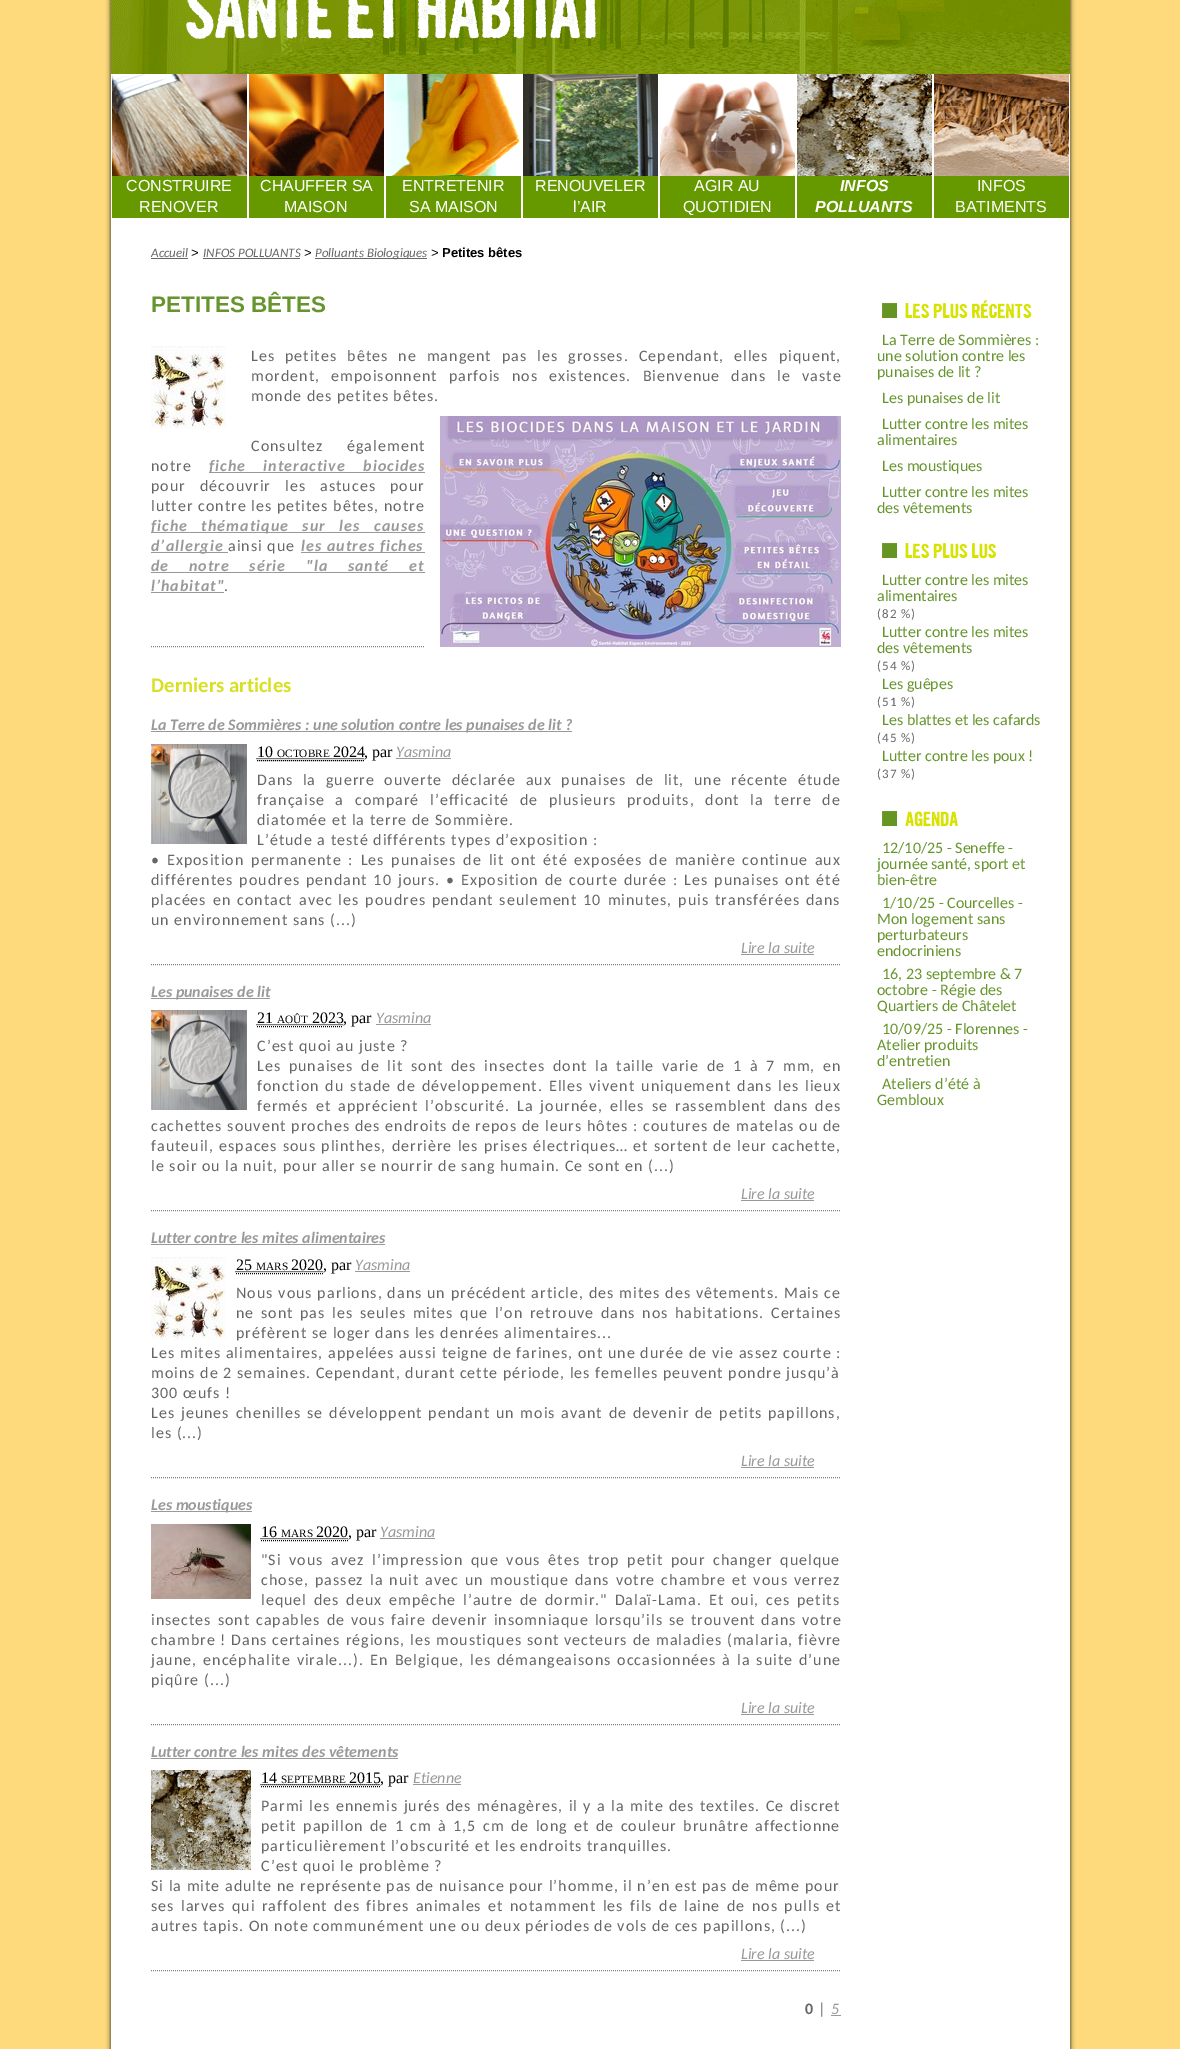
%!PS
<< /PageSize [1180 2049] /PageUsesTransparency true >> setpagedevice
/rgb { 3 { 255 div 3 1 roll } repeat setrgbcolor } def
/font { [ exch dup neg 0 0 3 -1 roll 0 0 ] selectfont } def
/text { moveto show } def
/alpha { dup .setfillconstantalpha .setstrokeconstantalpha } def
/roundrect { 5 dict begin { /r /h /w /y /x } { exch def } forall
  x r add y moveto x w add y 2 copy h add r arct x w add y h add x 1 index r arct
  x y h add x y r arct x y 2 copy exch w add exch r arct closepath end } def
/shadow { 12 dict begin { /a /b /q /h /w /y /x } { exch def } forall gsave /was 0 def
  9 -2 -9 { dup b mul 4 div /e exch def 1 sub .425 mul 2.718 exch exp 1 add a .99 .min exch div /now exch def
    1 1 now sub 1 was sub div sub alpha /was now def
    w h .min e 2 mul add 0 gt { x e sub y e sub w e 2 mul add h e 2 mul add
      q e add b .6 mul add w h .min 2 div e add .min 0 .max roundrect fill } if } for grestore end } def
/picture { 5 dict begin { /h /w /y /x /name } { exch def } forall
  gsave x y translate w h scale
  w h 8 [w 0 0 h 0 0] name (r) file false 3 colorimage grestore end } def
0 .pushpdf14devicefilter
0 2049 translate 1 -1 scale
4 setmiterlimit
255 218 124 rgb
0 0 1180 2049 rectfill
28 26 25 rgb
111 -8 959 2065 0 2.5 1 shadow
255 255 255 rgb
111 74 959 1975 rectfill
(img_01.rgb) 111 0 959 74 picture
(img_02.rgb) 112 74 135 102 picture
(img_03.rgb) 249 74 135 102 picture
(img_04.rgb) 386 74 135 102 picture
(img_05.rgb) 523 74 135 102 picture
(img_06.rgb) 660 81 135 95 picture
(img_07.rgb) 797 74 135 102 picture
(img_08.rgb) 934 74 135 102 picture
102 153 0 rgb
112 176 135 42 rectfill
249 176 135 42 rectfill
386 176 135 42 rectfill
523 176 135 42 rectfill
660 176 135 42 rectfill
797 176 135 42 rectfill
934 176 135 42 rectfill
102 102 102 rgb
151 258 37 1 rectfill
203 258 97 1 rectfill
315 258 112 1 rectfill
(img_09.rgb) 151 346 75 83 picture
(img_10.rgb) 440 416 401 231 picture
153 153 153 rgb
209 472 216 1 rectfill
151 532 274 1 rectfill
151 552 77 1 rectfill
301 552 124 1 rectfill
151 572 274 1 rectfill
151 592 73 1 rectfill
128 128 128 rgb
[1 1] 0 setdash
151 646.5 moveto 274 0 rlineto stroke
153 153 153 rgb
151 731 421 1 rectfill
(img_11.rgb) 151 744 96 100 picture
0 0 0 rgb
257 760.5 moveto 107 0 rlineto stroke
256.5 758.5 moveto 107.5 0 rlineto stroke
153 153 153 rgb
396 758 55 1 rectfill
741 954 73 1 rectfill
128 128 128 rgb
151 964.5 moveto 690 0 rlineto stroke
153 153 153 rgb
151 998 119 1 rectfill
(img_11.rgb) 151 1010 96 100 picture
0 0 0 rgb
257 1026.5 moveto 86 0 rlineto stroke
256.5 1024.5 moveto 86.5 0 rlineto stroke
153 153 153 rgb
376 1024 55 1 rectfill
741 1200 73 1 rectfill
128 128 128 rgb
151 1210.5 moveto 690 0 rlineto stroke
153 153 153 rgb
151 1244 234 1 rectfill
(img_09.rgb) 151 1257 75 83 picture
0 0 0 rgb
236 1273.5 moveto 87 0 rlineto stroke
235.5 1271.5 moveto 87 0 rlineto stroke
153 153 153 rgb
355 1271 55 1 rectfill
741 1467 73 1 rectfill
128 128 128 rgb
151 1477.5 moveto 690 0 rlineto stroke
153 153 153 rgb
151 1511 101 1 rectfill
(img_12.rgb) 151 1524 100 75 picture
0 0 0 rgb
261 1540.5 moveto 87 0 rlineto stroke
260.5 1538.5 moveto 87 0 rlineto stroke
153 153 153 rgb
380 1538 55 1 rectfill
741 1714 73 1 rectfill
128 128 128 rgb
151 1724.5 moveto 690 0 rlineto stroke
153 153 153 rgb
151 1758 247 1 rectfill
(img_13.rgb) 151 1770 100 100 picture
0 0 0 rgb
261 1786.5 moveto 119 0 rlineto stroke
260.5 1784.5 moveto 119.5 0 rlineto stroke
153 153 153 rgb
413 1784 48 1 rectfill
741 1960 73 1 rectfill
128 128 128 rgb
151 1970.5 moveto 690 0 rlineto stroke
153 153 153 rgb
831 2015 10 1 rectfill
(img_14.rgb) 882 300 150 19 picture
(img_15.rgb) 882 543 114 16 picture
(img_16.rgb) 882 811 76 16 picture
/LiberationSans-Regular 16 font
255 255 255 rgb
(CONSTRUIRE) 126 191 text
(RENOVER) 139 212 text
(CHAUFFER SA) 260 191 text
(MAISON) 284 212 text
(ENTRETENIR) 402 191 text
(SA MAISON) 409 212 text
(RENOUVELER) 535 191 text
(l’AIR) 573 212 text
(AGIR AU) 694 191 text
(QUOTIDIEN) 683 212 text
/LiberationSans-BoldItalic 16 font
(INFOS) 840 191 text
(POLLUANTS) 815 212 text
/LiberationSans-Regular 16 font
(INFOS) 977 191 text
(BATIMENTS) 955 212 text
/Carlito-Italic 13 font
102 102 102 rgb
(Accueil) 151 257 text
/LiberationSans-Regular 13 font
0 0 0 rgb
(>) 191 257 text
/Carlito-Italic 13 font
102 102 102 rgb
(INFOS POLLUANTS) 203 257 text
/LiberationSans-Regular 13 font
0 0 0 rgb
(>) 304 257 text
/Carlito-Italic 13 font
102 102 102 rgb
(Polluants Biologiques) 315 257 text
/LiberationSans-Regular 13 font
0 0 0 rgb
(>) 431 257 text
/LiberationSans-Bold 13 font
(Petites bêtes) 442 257 text
/LiberationSans-Bold 22.5 font
102 149 46 rgb
(PETITES BÊTES) 151 312 text
/Carlito-Regular 16 font
102 102 102 rgb
251 361 moveto 5.5 0 32 1 0 (Les petites bêtes ne mangent pas les grosses. Cependant, elles piquent,) awidthshow
251 381 moveto 6.5 0 32 1 0 (mordent, empoisonnent parfois nos existences. Bienvenue dans le vaste) awidthshow
251 401 moveto 1 0 (monde des petites bêtes.) ashow
251 451 moveto 19 0 32 1 0 (Consultez également) awidthshow
151 471 moveto 1 0 (notre) ashow
/Carlito-BoldItalic 16 font
153 153 153 rgb
209 471 moveto 13 0 32 1 0 (fiche interactive biocides) awidthshow
/Carlito-Regular 16 font
102 102 102 rgb
151 491 moveto 9.5 0 32 1 0 (pour découvrir les astuces pour) awidthshow
151 511 moveto 1 0 (lutter contre les petites bêtes, notre) ashow
/Carlito-BoldItalic 16 font
153 153 153 rgb
151 531 moveto 9 0 32 1 0 (fiche thématique sur les causes) awidthshow
151 551 moveto 1 0 (d’allergie) ashow
/Carlito-Regular 16 font
102 102 102 rgb
228 551 moveto 1 0 (ainsi que) ashow
/Carlito-BoldItalic 16 font
153 153 153 rgb
301 551 moveto 1 0 (les autres fiches) ashow
151 571 moveto 15 0 32 1 0 (de notre série "la santé et) awidthshow
151 591 moveto 1 0 (l’habitat") ashow
/Carlito-Regular 16 font
102 102 102 rgb
224 591 moveto 1 0 (.) ashow
/Carlito-Bold 20.75 font
215 224 34 rgb
(Derniers articles) 151 692 text
/Carlito-BoldItalic 16 font
153 153 153 rgb
(La Terre de Sommières : une solution contre les punaises de lit ?) 151 730 text
/LiberationSerif-Regular 16 font
0 0 0 rgb
(10) 257 757 text
/LiberationSerif-Regular 11.25 font
(OCTOBRE) 277 757 text
/LiberationSerif-Regular 16 font
(2024) 333 757 text
(, par) 364 757 text
/Carlito-Italic 16 font
153 153 153 rgb
(Yasmina) 396 757 text
/Carlito-Regular 16 font
102 102 102 rgb
257 785 moveto 5 0 32 1 0 (Dans la guerre ouverte déclarée aux punaises de lit, une récente étude) awidthshow
257 805 moveto 6 0 32 1 0 (française a comparé l’efficacité de plusieurs produits, dont la terre de) awidthshow
257 825 moveto 1 0 (diatomée et la terre de Sommière.) ashow
257 845 moveto 1 0 (L’étude a testé différents types d’exposition :) ashow
151 865 moveto 2.25 0 32 1 0 (• Exposition permanente : Les punaises de lit ont été exposées de manière continue aux) awidthshow
151 885 moveto 1.4 0 32 1 0 (différentes poudres pendant 10 jours. • Exposition de courte durée : Les punaises ont été) awidthshow
151 905 moveto 1.4 0 32 1 0 (placées en contact avec les poudres pendant seulement 10 minutes, puis transférées dans) awidthshow
151 925 moveto 1 0 (un environnement sans \(...\)) ashow
/Carlito-Italic 16 font
153 153 153 rgb
(Lire la suite) 741 953 text
/Carlito-BoldItalic 16 font
(Les punaises de lit) 151 997 text
/LiberationSerif-Regular 16 font
0 0 0 rgb
(21) 257 1023 text
/LiberationSerif-Regular 11.25 font
(AOÛT) 277 1023 text
/LiberationSerif-Regular 16 font
(2023) 312 1023 text
(, par) 343 1023 text
/Carlito-Italic 16 font
153 153 153 rgb
(Yasmina) 376 1023 text
/Carlito-Regular 16 font
102 102 102 rgb
257 1051 moveto 1 0 (C’est quoi au juste ?) ashow
257 1071 moveto 3.1 0 32 1 0 (Les punaises de lit sont des insectes dont la taille varie de 1 à 7 mm, en) awidthshow
257 1091 moveto 1.5 0 32 1 0 (fonction du stade de développement. Elles vivent uniquement dans les lieux) awidthshow
257 1111 moveto 2.5 0 32 1 0 (fermés et apprécient l’obscurité. La journée, elles se rassemblent dans des) awidthshow
151 1131 moveto 0.2 0 32 1 0 (cachettes souvent proches des endroits de repos de leurs hôtes : coutures de matelas ou de) awidthshow
151 1151 moveto 0.6 0 32 1 0 (fauteuil, espaces sous plinthes, derrière les prises électriques… et sortent de leur cachette,) awidthshow
151 1171 moveto 1 0 (le soir ou la nuit, pour aller se nourrir de sang humain. Ce sont en \(...\)) ashow
/Carlito-Italic 16 font
153 153 153 rgb
(Lire la suite) 741 1199 text
/Carlito-BoldItalic 16 font
(Lutter contre les mites alimentaires) 151 1243 text
/LiberationSerif-Regular 16 font
0 0 0 rgb
(25) 236 1270 text
/LiberationSerif-Regular 11.25 font
(MARS) 256 1270 text
/LiberationSerif-Regular 16 font
(2020) 291 1270 text
(, par) 323 1270 text
/Carlito-Italic 16 font
153 153 153 rgb
(Yasmina) 355 1270 text
/Carlito-Regular 16 font
102 102 102 rgb
236 1298 moveto 0.25 0 32 1 0 (Nous vous parlions, dans un précédent article, des mites des vêtements. Mais ce) awidthshow
236 1318 moveto 2 0 32 1 0 (ne sont pas les seules mites que l’on retrouve dans nos habitations. Certaines) awidthshow
236 1338 moveto 1 0 (préfèrent se loger dans les denrées alimentaires...) ashow
151 1358 moveto 0.25 0 32 1 0 (Les mites alimentaires, appelées aussi teigne de farines, ont une durée de vie assez courte :) awidthshow
151 1378 moveto 1 0 (moins de 2 semaines. Cependant, durant cette période, les femelles peuvent pondre jusqu’à) ashow
151 1398 moveto 1 0 (300 œufs !) ashow
151 1418 moveto 1.25 0 32 1 0 (Les jeunes chenilles se développent pendant un mois avant de devenir de petits papillons,) awidthshow
151 1438 moveto 1 0 (les \(...\)) ashow
/Carlito-Italic 16 font
153 153 153 rgb
(Lire la suite) 741 1466 text
/Carlito-BoldItalic 16 font
(Les moustiques) 151 1510 text
/LiberationSerif-Regular 16 font
0 0 0 rgb
(16) 261 1537 text
/LiberationSerif-Regular 11.25 font
(MARS) 281 1537 text
/LiberationSerif-Regular 16 font
(2020) 316 1537 text
(, par) 348 1537 text
/Carlito-Italic 16 font
153 153 153 rgb
(Yasmina) 380 1537 text
/Carlito-Regular 16 font
102 102 102 rgb
261 1565 moveto 3.1 0 32 1 0 ("Si vous avez l’impression que vous êtes trop petit pour changer quelque) awidthshow
261 1585 moveto 1.5 0 32 1 0 (chose, passez la nuit avec un moustique dans votre chambre et vous verrez) awidthshow
261 1605 moveto 2.25 0 32 1 0 (lequel des deux empêche l’autre de dormir." Dalaï-Lama. Et oui, ces petits) awidthshow
151 1625 moveto 1.25 0 32 1 0 (insectes sont capables de vous faire devenir insomniaque lorsqu’ils se trouvent dans votre) awidthshow
151 1645 moveto 1 0 (chambre !) ashow
231 1645 moveto 0.25 0 32 1 0 (Dans certaines régions, les moustiques sont vecteurs de maladies \(malaria, fièvre) awidthshow
151 1665 moveto 1.4 0 32 1 0 (jaune, encéphalite virale...\). En Belgique, les démangeaisons occasionnées à la suite d’une) awidthshow
151 1685 moveto 1 0 (piqûre \(...\)) ashow
/Carlito-Italic 16 font
153 153 153 rgb
(Lire la suite) 741 1713 text
/Carlito-BoldItalic 16 font
(Lutter contre les mites des vêtements) 151 1757 text
/LiberationSerif-Regular 16 font
0 0 0 rgb
(14) 261 1783 text
/LiberationSerif-Regular 11.25 font
(SEPTEMBRE) 281 1783 text
/LiberationSerif-Regular 16 font
(2015) 349 1783 text
(, par) 380 1783 text
/Carlito-Italic 16 font
153 153 153 rgb
(Etienne) 413 1783 text
/Carlito-Regular 16 font
102 102 102 rgb
261 1811 moveto 0.8 0 32 1 0 (Parmi les ennemis jurés des ménagères, il y a la mite des textiles. Ce discret) awidthshow
261 1831 moveto 1.8 0 32 1 0 (petit papillon de 1 cm à 1,5 cm de long et de couleur brunâtre affectionne) awidthshow
261 1851 moveto 1 0 (particulièrement l’obscurité et les endroits tranquilles.) ashow
261 1871 moveto 1 0 (C’est quoi le problème ?) ashow
151 1891 moveto 1 0 (Si la mite adulte ne représente pas de nuisance pour l’homme, il n’en est pas de même pour) ashow
151 1911 moveto 1.9 0 32 1 0 (ses larves qui raffolent des fibres animales et notamment les fils de laine de nos pulls et) awidthshow
151 1931 moveto 1 0 (autres tapis. On note communément une ou deux périodes de vols de ces papillons, \(...\)) ashow
/Carlito-Italic 16 font
153 153 153 rgb
(Lire la suite) 741 1959 text
/Carlito-Bold 16 font
102 102 102 rgb
805 2014 moveto 1 0 (0) ashow
/Carlito-Regular 16 font
818 2014 moveto 1 0 (|) ashow
/Carlito-Italic 16 font
153 153 153 rgb
831 2014 moveto 1 0 (5) ashow
/Carlito-Regular 16 font
102 149 46 rgb
(La Terre de Sommières :) 882 345 text
(une solution contre les) 877 361 text
(punaises de lit ?) 877 377 text
(Les punaises de lit) 882 403 text
(Lutter contre les mites) 882 429 text
(alimentaires) 877 445 text
(Les moustiques) 882 471 text
(Lutter contre les mites) 882 497 text
(des vêtements) 877 513 text
(Lutter contre les mites) 882 585 text
(alimentaires) 877 601 text
/Carlito-Regular 13 font
102 102 102 rgb
877 618 moveto 1 0 (\(82 %\)) ashow
/Carlito-Regular 16 font
102 149 46 rgb
(Lutter contre les mites) 882 637 text
(des vêtements) 877 653 text
/Carlito-Regular 13 font
102 102 102 rgb
877 670 moveto 1 0 (\(54 %\)) ashow
/Carlito-Regular 16 font
102 149 46 rgb
(Les guêpes) 882 689 text
/Carlito-Regular 13 font
102 102 102 rgb
877 706 moveto 1 0 (\(51 %\)) ashow
/Carlito-Regular 16 font
102 149 46 rgb
(Les blattes et les cafards) 882 725 text
/Carlito-Regular 13 font
102 102 102 rgb
877 742 moveto 1 0 (\(45 %\)) ashow
/Carlito-Regular 16 font
102 149 46 rgb
(Lutter contre les poux !) 882 761 text
/Carlito-Regular 13 font
102 102 102 rgb
877 778 moveto 1 0 (\(37 %\)) ashow
/Carlito-Regular 16 font
102 149 46 rgb
(12/10/25 - Seneffe -) 882 853 text
(journée santé, sport et) 877 869 text
(bien-être) 877 885 text
(1/10/25 - Courcelles -) 882 908 text
(Mon logement sans) 877 924 text
(perturbateurs) 877 940 text
(endocriniens) 877 956 text
(16, 23 septembre & 7) 882 979 text
(octobre - Régie des) 877 995 text
(Quartiers de Châtelet) 877 1011 text
(10/09/25 - Florennes -) 882 1034 text
(Atelier produits) 877 1050 text
(d’entretien) 877 1066 text
(Ateliers d’été à) 882 1089 text
(Gembloux) 877 1105 text
.poppdf14devicefilter showpage
